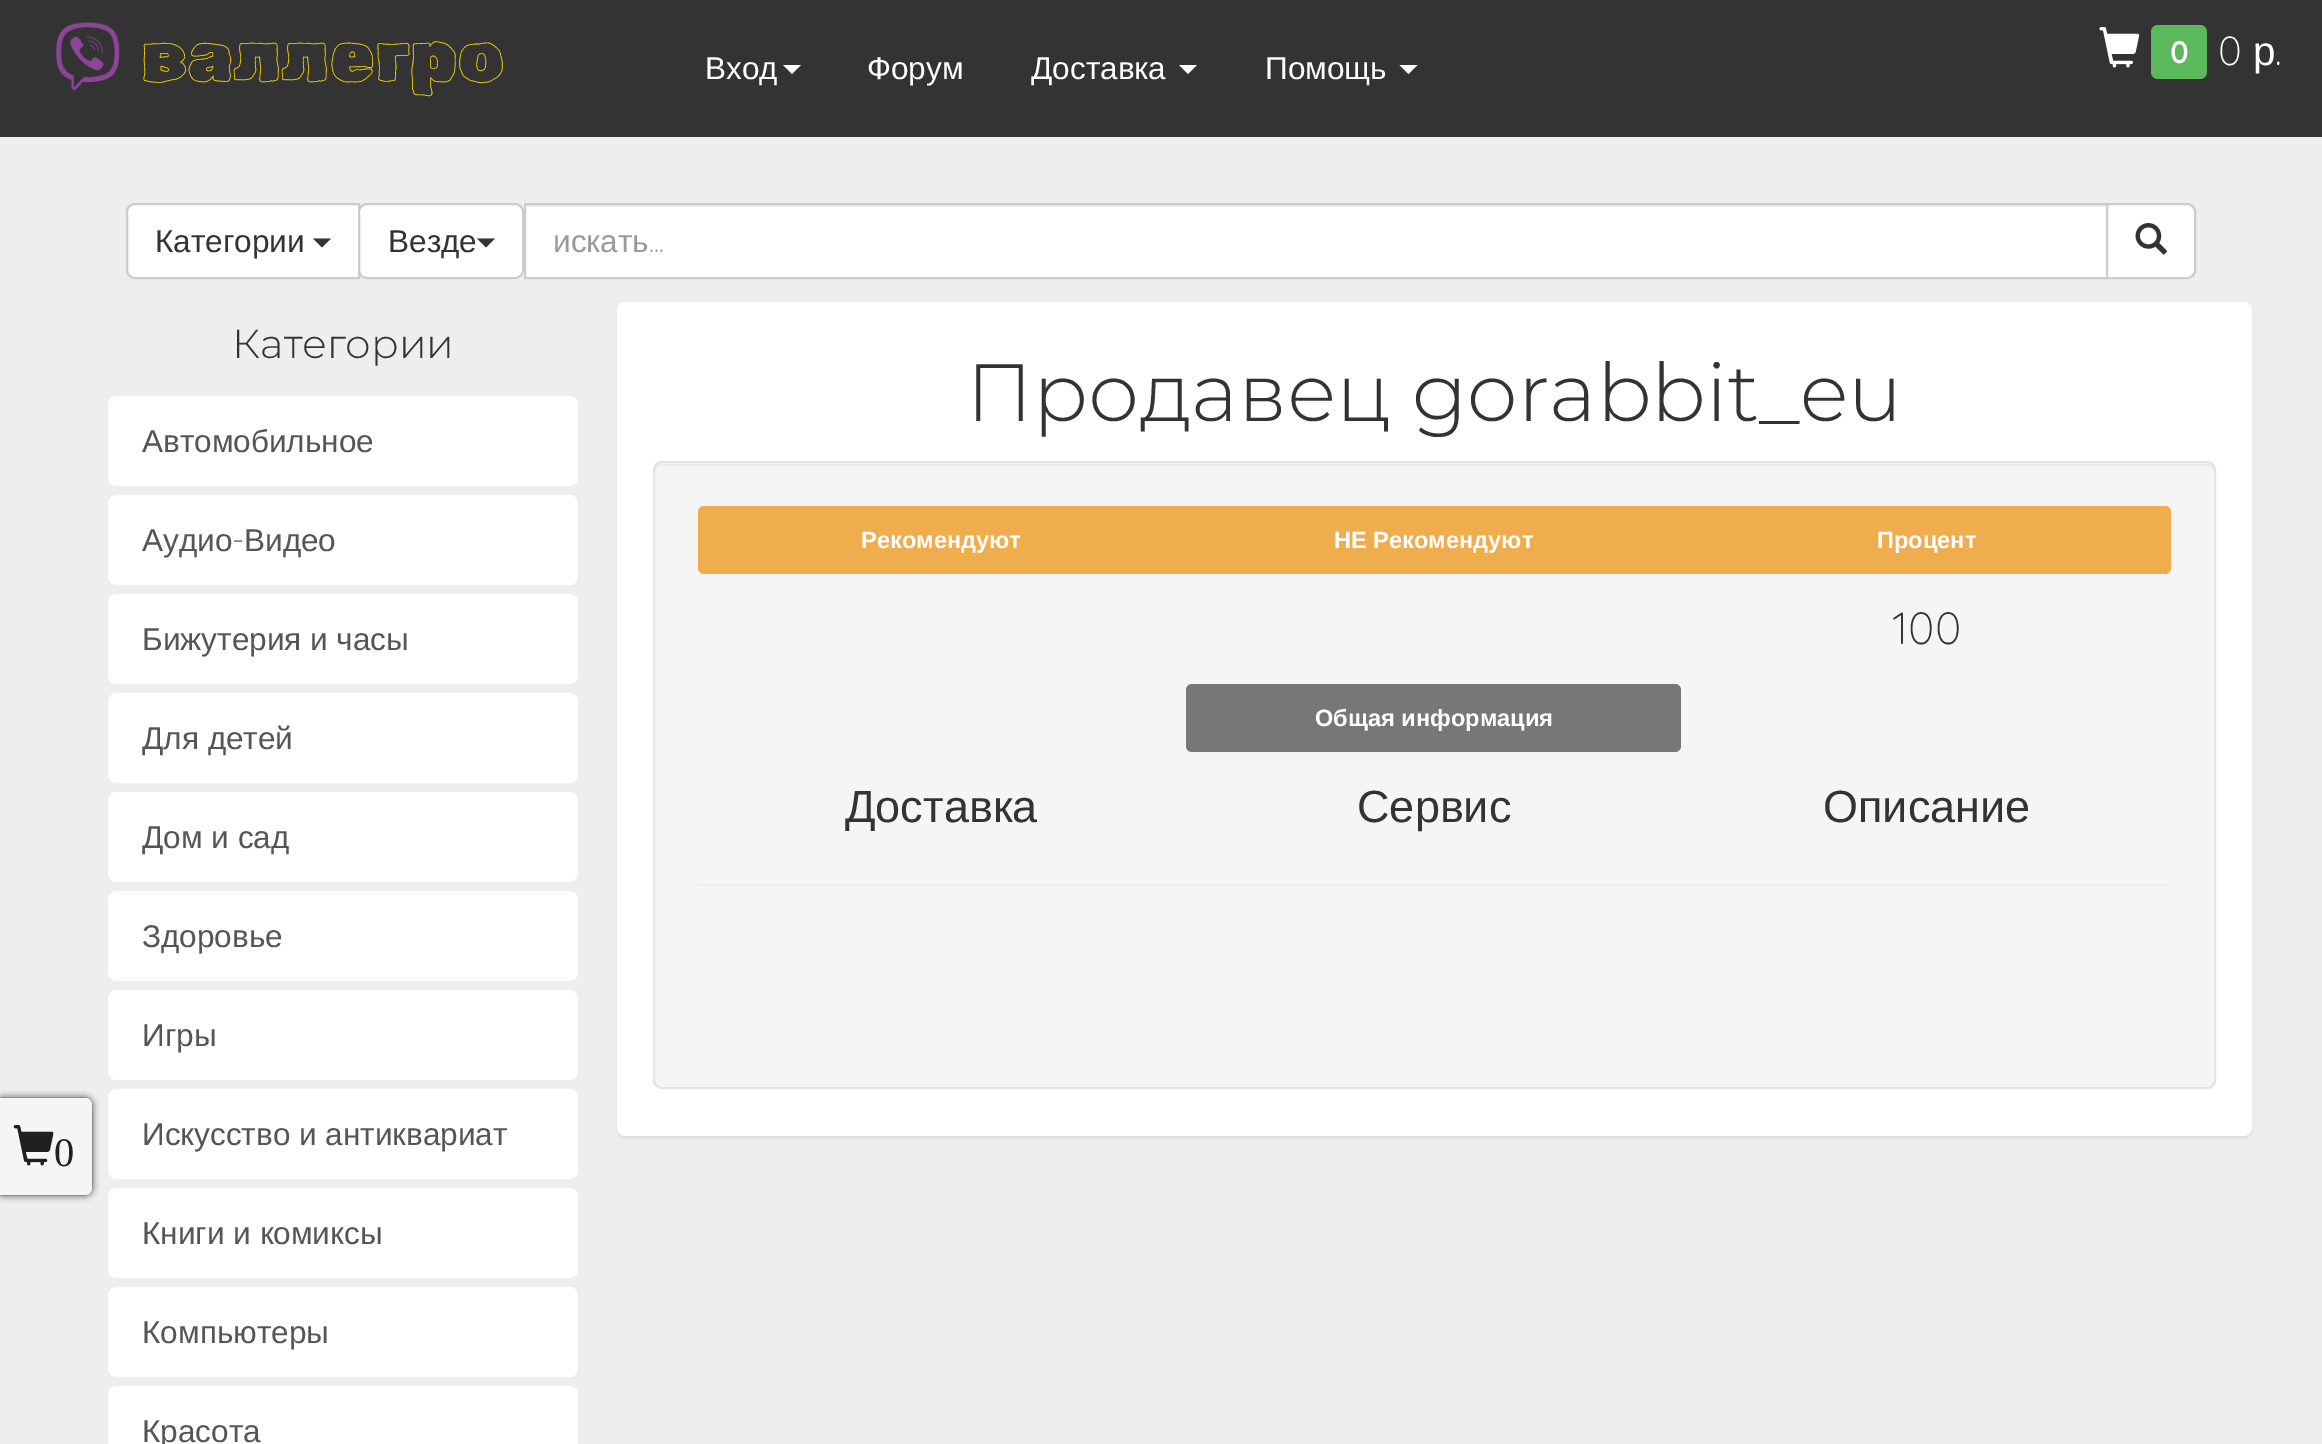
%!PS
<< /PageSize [2322 1444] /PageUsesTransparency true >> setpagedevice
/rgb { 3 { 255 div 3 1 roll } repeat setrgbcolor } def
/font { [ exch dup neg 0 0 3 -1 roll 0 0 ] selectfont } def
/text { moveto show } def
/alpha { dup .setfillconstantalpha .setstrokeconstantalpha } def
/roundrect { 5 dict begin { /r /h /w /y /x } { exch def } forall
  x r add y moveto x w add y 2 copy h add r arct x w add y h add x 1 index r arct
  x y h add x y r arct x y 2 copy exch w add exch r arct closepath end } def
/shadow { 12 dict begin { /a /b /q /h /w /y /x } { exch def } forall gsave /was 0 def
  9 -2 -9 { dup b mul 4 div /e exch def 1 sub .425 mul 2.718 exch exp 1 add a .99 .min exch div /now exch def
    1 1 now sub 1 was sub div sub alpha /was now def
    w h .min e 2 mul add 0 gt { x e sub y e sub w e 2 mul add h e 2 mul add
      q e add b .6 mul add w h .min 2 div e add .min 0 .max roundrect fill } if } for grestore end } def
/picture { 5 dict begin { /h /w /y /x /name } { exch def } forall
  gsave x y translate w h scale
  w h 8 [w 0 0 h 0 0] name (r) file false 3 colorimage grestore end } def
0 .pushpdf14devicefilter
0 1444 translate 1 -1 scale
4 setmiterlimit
238 238 238 rgb
0 0 2322 1444 rectfill
51 51 51 rgb
0 0 2322 137 rectfill
(img_01.rgb) 56 22 64 68 picture
255 255 255 rgb
783 65 moveto 18 0 rlineto -9 9 rlineto closepath fill
1179 65 moveto 18 0 rlineto -9 9 rlineto closepath fill
1399.5 65 moveto 18 0 rlineto -9 9 rlineto closepath fill
(img_02.rgb) 2099 27 41 41 picture
92 184 92 rgb
2151 25 56 54 7 roundrect fill
0 0 0 rgb
-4 1098 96 97 7 3.5 0.8 shadow
245 245 245 rgb
-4 1098 moveto 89 0 rlineto 4 0 7 3 7 7 rcurveto 0 83 rlineto 0 4 -3 7 -7 7 rcurveto -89 0 rlineto closepath fill
(img_03.rgb) 13 1125 41 41 picture
255 255 255 rgb
135 204 moveto 224 0 rlineto 0 74 rlineto -224 0 rlineto -4.5 0 -8 -3.5 -8 -8 rcurveto 0 -58 rlineto 0 -4.5 3.5 -8 8 -8 rcurveto closepath gsave fill grestore
204 204 204 rgb
2 setlinewidth
stroke
51 51 51 rgb
313 238.5 moveto 18 0 rlineto -9 9 rlineto closepath fill
255 255 255 rgb
359 204 164 74 8 roundrect gsave fill grestore
204 204 204 rgb
stroke
51 51 51 rgb
477 238.5 moveto 18 0 rlineto -9 9 rlineto closepath fill
255 255 255 rgb
526 205 1580 72 rectfill
236 236 236 rgb
527 205 1579 2 rectfill
204 204 204 rgb
525 204 1582 74 rectstroke
255 255 255 rgb
2107 204 moveto 80 0 rlineto 4.5 0 8 3.5 8 8 rcurveto 0 58 rlineto 0 4.5 -3.5 8 -8 8 rcurveto -80 0 rlineto closepath gsave fill grestore
204 204 204 rgb
stroke
(img_04.rgb) 2135 223 32 32 picture
255 255 255 rgb
108 396 470 90 9 roundrect fill
108 495 470 90 9 roundrect fill
108 594 470 90 9 roundrect fill
108 693 470 90 9 roundrect fill
108 792 470 90 9 roundrect fill
108 891 470 90 9 roundrect fill
108 990 470 90 9 roundrect fill
108 1089 470 90 9 roundrect fill
108 1188 470 90 9 roundrect fill
108 1287 470 90 9 roundrect fill
108 1386 470 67 9 roundrect fill
0 0 0 rgb
617 304 1635 835 9 1 0.05 shadow
255 255 255 rgb
617 302 1635 834 9 roundrect fill
245 245 245 rgb
653 461 1563 628 9 roundrect fill
233 233 233 rgb
662 466 moveto 1545 0 rlineto 4 0 7 3 7 6 rcurveto 0 -4 -2 -8 -7 -8 rcurveto -1545 0 rlineto -5 0 -7 4 -7 8 rcurveto 0 -3 3 -6 7 -6 rcurveto closepath fill
227 227 227 rgb
654 462 1561 626 8 roundrect stroke
240 173 78 rgb
698 506 1473 68 6 roundrect fill
119 119 119 rgb
1186 684 495 68 6 roundrect fill
238 238 238 rgb
698 884 1473 2 rectfill
/RubikScribble-Regular 72 font
255 215 0 rgb
(валлегро) 141 81 text
/LiberationSans-Regular 31.5 font
255 255 255 rgb
(Вход) 705 79 text
(Форум) 867 79 text
(Доставка) 1031 79 text
(Помощь) 1265 79 text
/Quicksand-Bold 30 font
(0) 2170 63 text
/Quicksand-Light 40.5 font
(0) 2218 65 text
/LiberationSans-Regular 40.5 font
(р) 2253 65 text
/Quicksand-Light 40.5 font
(.) 2275 65 text
/LiberationSerif-Regular 40.5 font
32 32 32 rgb
(0) 54 1166 text
/LiberationSans-Regular 31.5 font
51 51 51 rgb
(Категории) 155 252 text
(Везде) 388 252 text
153 153 153 rgb
(искать) 553 252 text
/Quicksand-Light 31.5 font
(...) 649 252 text
/Montserrat-Thin 40.5 font
51 51 51 rgb
(Категории) 232 358 text
/LiberationSans-Regular 31.5 font
85 85 85 rgb
(Автомобильное) 142 452 text
(Аудио) 142 551 text
/Quicksand-Light 31.5 font
(-) 232 551 text
/LiberationSans-Regular 31.5 font
(Видео) 244 551 text
(Бижутерия и часы) 142 650 text
(Для детей) 142 749 text
(Дом и сад) 142 848 text
(Здоровье) 142 947 text
(Игры) 142 1046 text
(Искусство и антиквариат) 142 1145 text
(Книги и комиксы) 142 1244 text
(Компьютеры) 142 1343 text
(Красота) 142 1442 text
/Montserrat-Thin 81 font
51 51 51 rgb
(Продавец gorabbit_eu) 966 421 text
/LiberationSans-Bold 23.6 font
255 255 255 rgb
(Рекомендуют) 861 548 text
(НЕ Рекомендуют) 1334 548 text
(Процент) 1877 548 text
/Quicksand-Light 45 font
51 51 51 rgb
(100) 1892 644 text
/LiberationSans-Bold 23.6 font
255 255 255 rgb
(Общая информация) 1315 726 text
/LiberationSans-Regular 45 font
51 51 51 rgb
(Доставка) 845 822 text
(Сервис) 1357 822 text
(Описание) 1823 822 text
.poppdf14devicefilter showpage
